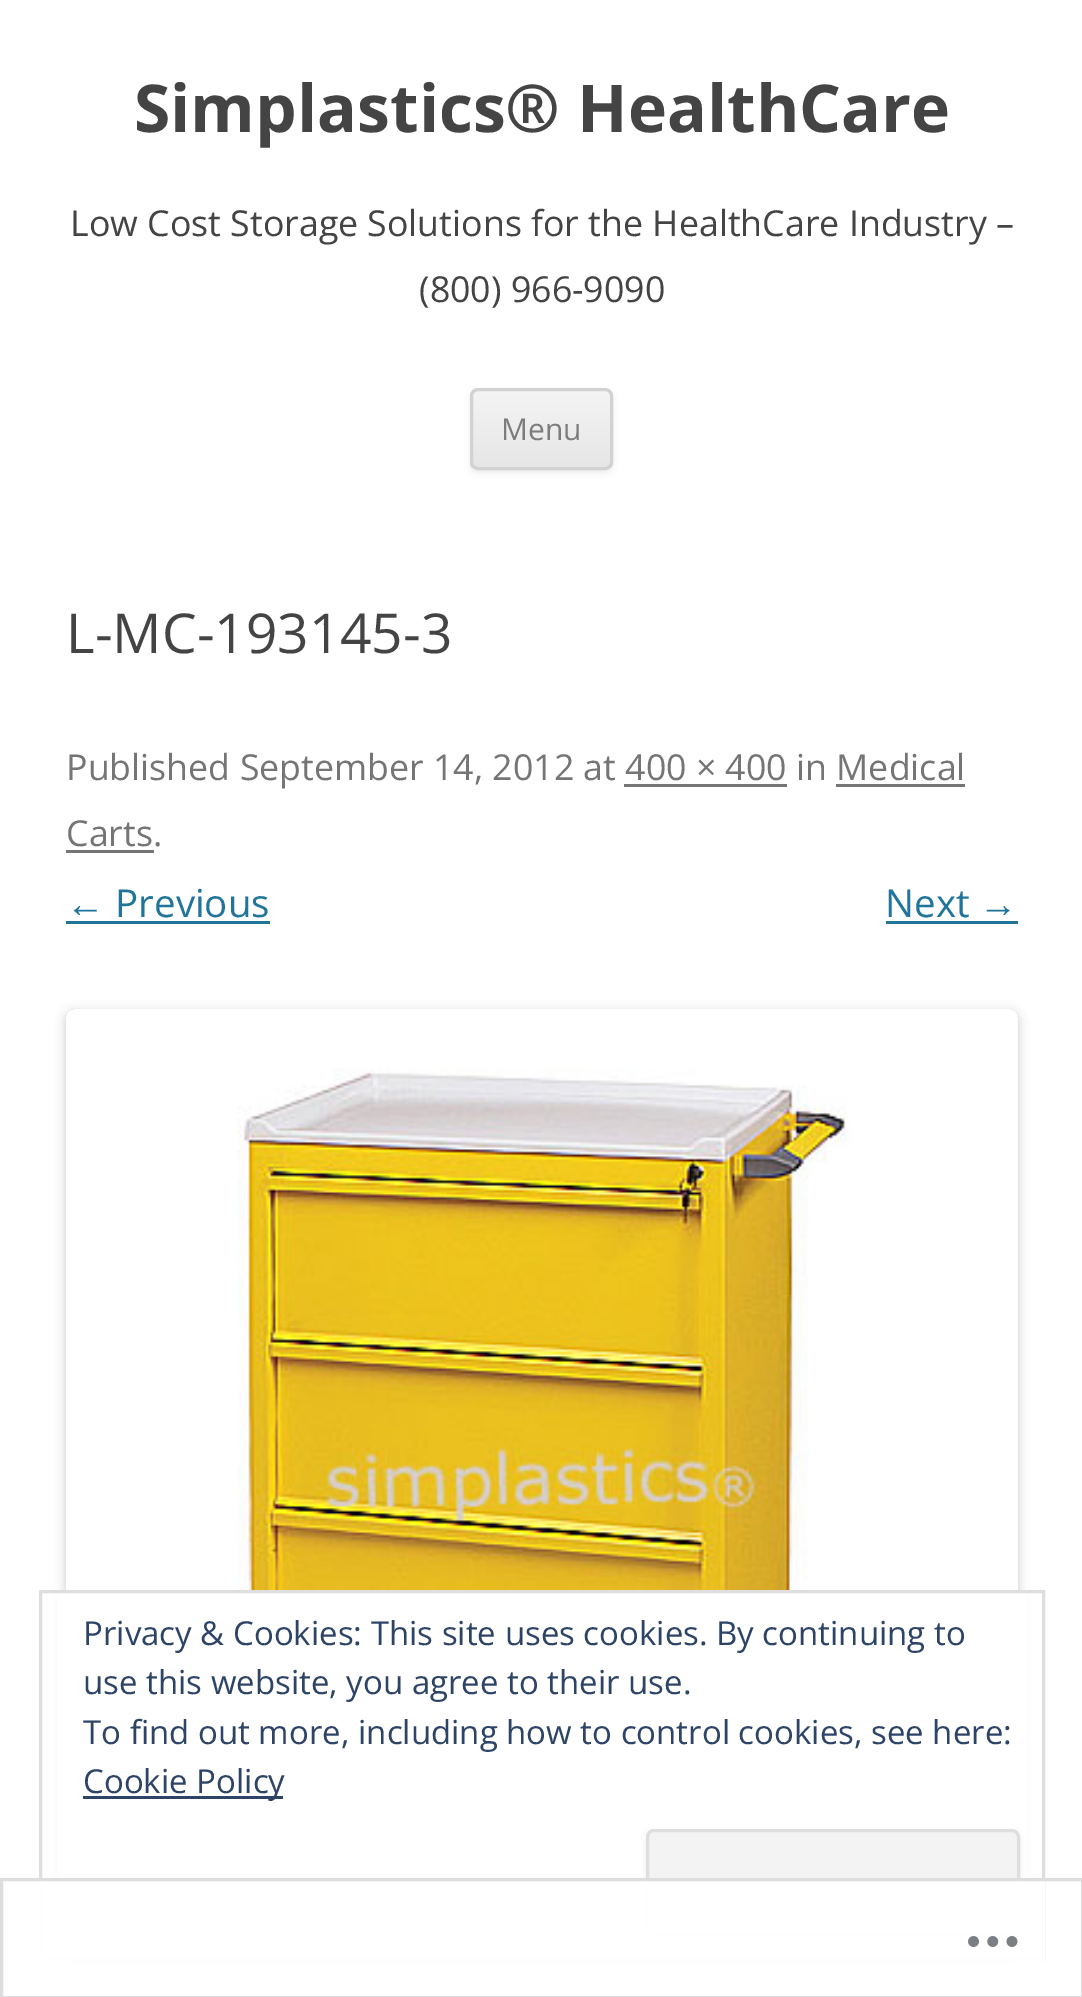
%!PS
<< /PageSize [1082 1997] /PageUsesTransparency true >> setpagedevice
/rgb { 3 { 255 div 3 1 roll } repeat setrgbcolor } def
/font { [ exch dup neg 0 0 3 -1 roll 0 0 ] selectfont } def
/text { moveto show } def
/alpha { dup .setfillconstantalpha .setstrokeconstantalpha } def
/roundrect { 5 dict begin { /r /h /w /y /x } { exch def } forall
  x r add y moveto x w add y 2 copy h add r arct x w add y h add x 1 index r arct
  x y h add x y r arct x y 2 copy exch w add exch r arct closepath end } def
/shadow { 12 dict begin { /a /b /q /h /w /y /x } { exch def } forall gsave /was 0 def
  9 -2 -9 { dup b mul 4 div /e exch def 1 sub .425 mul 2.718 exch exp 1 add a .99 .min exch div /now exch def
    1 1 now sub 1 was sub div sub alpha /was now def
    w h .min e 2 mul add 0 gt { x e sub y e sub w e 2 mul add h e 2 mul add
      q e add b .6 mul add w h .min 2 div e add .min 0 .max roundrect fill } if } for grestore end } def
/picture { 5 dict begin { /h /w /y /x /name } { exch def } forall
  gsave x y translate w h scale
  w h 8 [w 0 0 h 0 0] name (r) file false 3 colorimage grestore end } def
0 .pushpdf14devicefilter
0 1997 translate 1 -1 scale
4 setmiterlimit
255 255 255 rgb
0 0 1082 1997 rectfill
64 64 64 rgb
470 391 143 82 8 3 0.1 shadow
gsave
470 388 143 82 8 roundrect clip newpath
gsave 470 391 moveto 143 0 rlineto 0 77 rlineto -143 0 rlineto closepath clip newpath
<< /ShadingType 2 /ColorSpace /DeviceRGB /Coords [542 391 542 468] /Extend [true true] /Function << /FunctionType 2 /Domain [0 1] /C0 [0.957 0.957 0.957] /C1 [0.902 0.902 0.902] /N 1 >> >> shfill grestore
grestore
210 210 210 rgb
3 setlinewidth
471.5 389.5 140 79 6.5 roundrect stroke
117 117 117 rgb
624 784 163 3 rectfill
836 784 129 3 rectfill
66 850 88 3 rectfill
33 117 155 rgb
66 921 204 3 rectfill
886 921 132 3 rectfill
gsave
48 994 moveto 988 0 rlineto 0 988 rlineto -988 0 rlineto closepath 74 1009 moveto 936 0 rlineto 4.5 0 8 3.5 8 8 rcurveto 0 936 rlineto 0 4.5 -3.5 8 -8 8 rcurveto -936 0 rlineto -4.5 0 -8 -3.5 -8 -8 rcurveto 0 -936 rlineto 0 -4.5 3.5 -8 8 -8 rcurveto closepath eoclip newpath
0 0 0 rgb
66 1012 952 952 8 5.5 0.2 shadow
grestore
(img_01.rgb) 66 1067 951 523 picture
220 220 222 rgb
66 1980 176 3 rectfill
255 255 255 rgb
57 1593 970 365 rectfill
222 222 222 rgb
40.5 1591.5 1003 368 rectstroke
46 68 103 rgb
83 1796 200 3 rectfill
64 64 64 rgb
646 1832 374 107 8 3 0.1 shadow
243 243 243 rgb
647.5 1830.5 371 104 6.5 roundrect gsave fill grestore
222 222 222 rgb
stroke
0.98 alpha
255 255 255 rgb
39 1878 1006 105 rectfill
220 220 222 rgb
1.5 1879.5 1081 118 rectstroke
1 alpha
(img_02.rgb) 968 1936 50 11 picture
/OpenSans-Bold 66 font
68 68 68 rgb
(Simplastics® HealthCare) 134 132 text
/OpenSans-Regular 35.75 font
(Low Cost Storage Solutions for the HealthCare Industry –) 70 236 text
(\(800\) 966-9090) 419 302 text
/OpenSans-Regular 30 font
124 124 124 rgb
(Menu) 501 440 text
/OpenSans-Regular 55 font
68 68 68 rgb
(L-MC-193145-3) 66 653 text
/OpenSans-Regular 35.75 font
117 117 117 rgb
(Published September 14, 2012 at 400 × 400 in Medical) 66 780 text
(Carts.) 66 846 text
/LiberationSans-Regular 38.5 font
33 117 155 rgb
(←) 66 917 text
/OpenSans-Regular 38.5 font
(Previous) 115 917 text
(Next) 885 917 text
/LiberationSans-Regular 38.5 font
(→) 979 917 text
/OpenSans-Regular 33 font
46 68 103 rgb
(Privacy & Cookies: This site uses cookies. By continuing to) 83 1645 text
(use this website, you agree to their use.) 83 1694 text
(To find out more, including how to control cookies, see here:) 83 1744 text
(Cookie Policy) 83 1793 text
.poppdf14devicefilter showpage
